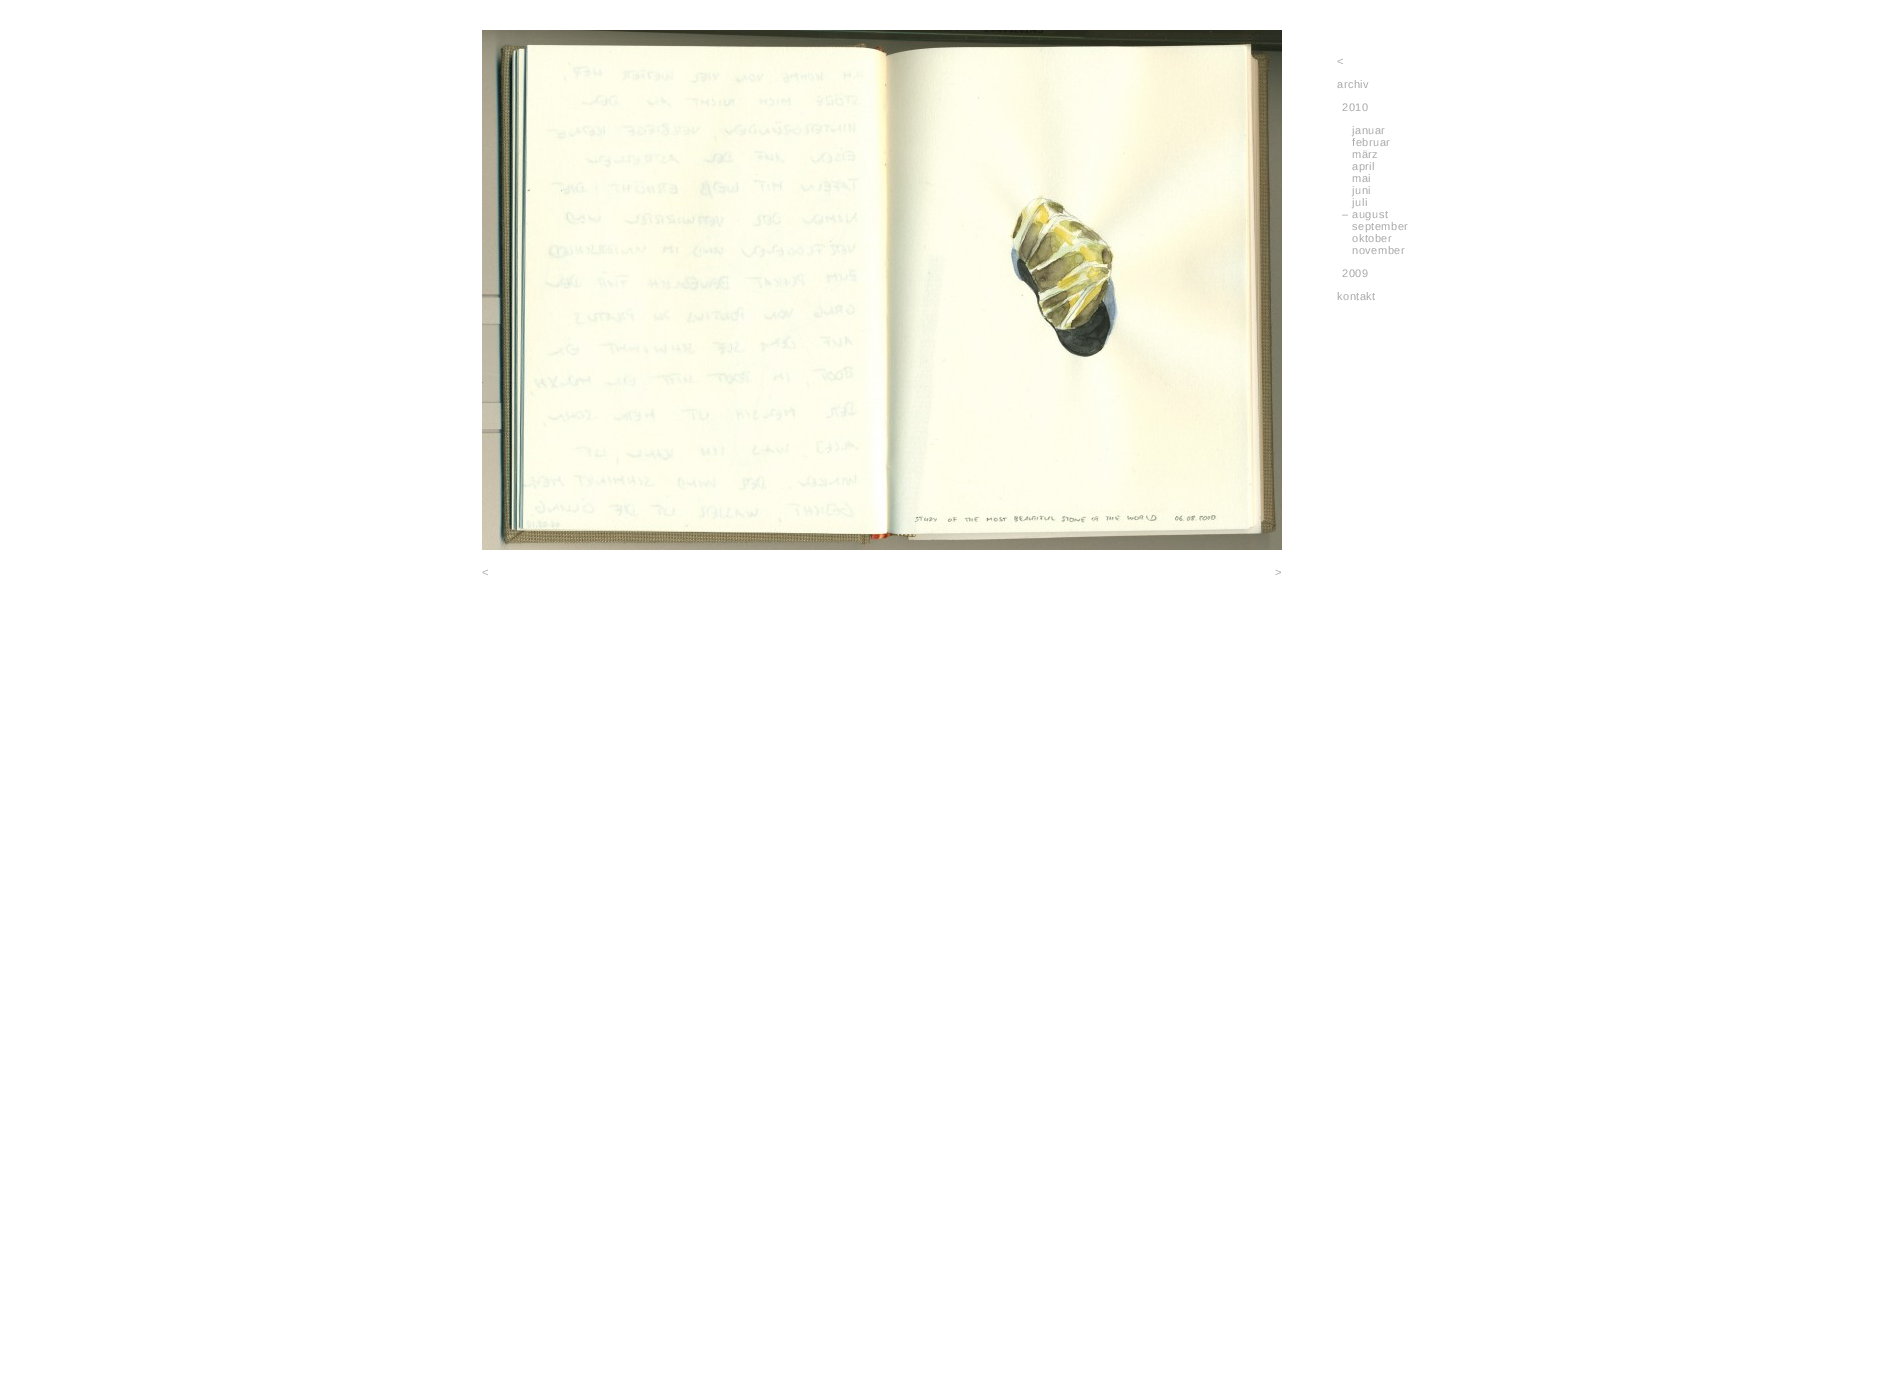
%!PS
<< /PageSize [1888 1387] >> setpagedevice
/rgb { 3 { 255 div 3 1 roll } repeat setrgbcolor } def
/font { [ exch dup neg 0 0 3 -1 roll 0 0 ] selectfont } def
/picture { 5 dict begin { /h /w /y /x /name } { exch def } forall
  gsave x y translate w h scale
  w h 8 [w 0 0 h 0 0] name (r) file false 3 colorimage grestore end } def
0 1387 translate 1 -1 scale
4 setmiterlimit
255 255 255 rgb
0 0 1888 1387 rectfill
(img_01.rgb) 482 30 800 520 picture
/LiberationSans-Regular 11 font
170 170 170 rgb
1337 65 moveto 0.5 0 (<) ashow
1337 88 moveto 0.5 0 (archiv) ashow
1342 111 moveto 0.5 0 (2010) ashow
1352 134 moveto 0.5 0 (januar) ashow
1352 146 moveto 0.5 0 (februar) ashow
1352 158 moveto 0.5 0 (märz) ashow
1352 170 moveto 0.5 0 (april) ashow
1352 182 moveto 0.5 0 (mai) ashow
1352 194 moveto 0.5 0 (juni) ashow
1352 206 moveto 0.5 0 (juli) ashow
1342 218 moveto 0.5 0 (– august) ashow
1352 230 moveto 0.5 0 (september) ashow
1352 242 moveto 0.5 0 (oktober) ashow
1352 254 moveto 0.5 0 (november) ashow
1342 277 moveto 0.5 0 (2009) ashow
1337 300 moveto 0.5 0 (kontakt) ashow
482 576 moveto 0.5 0 (<) ashow
1275 576 moveto 0.5 0 (>) ashow
showpage
